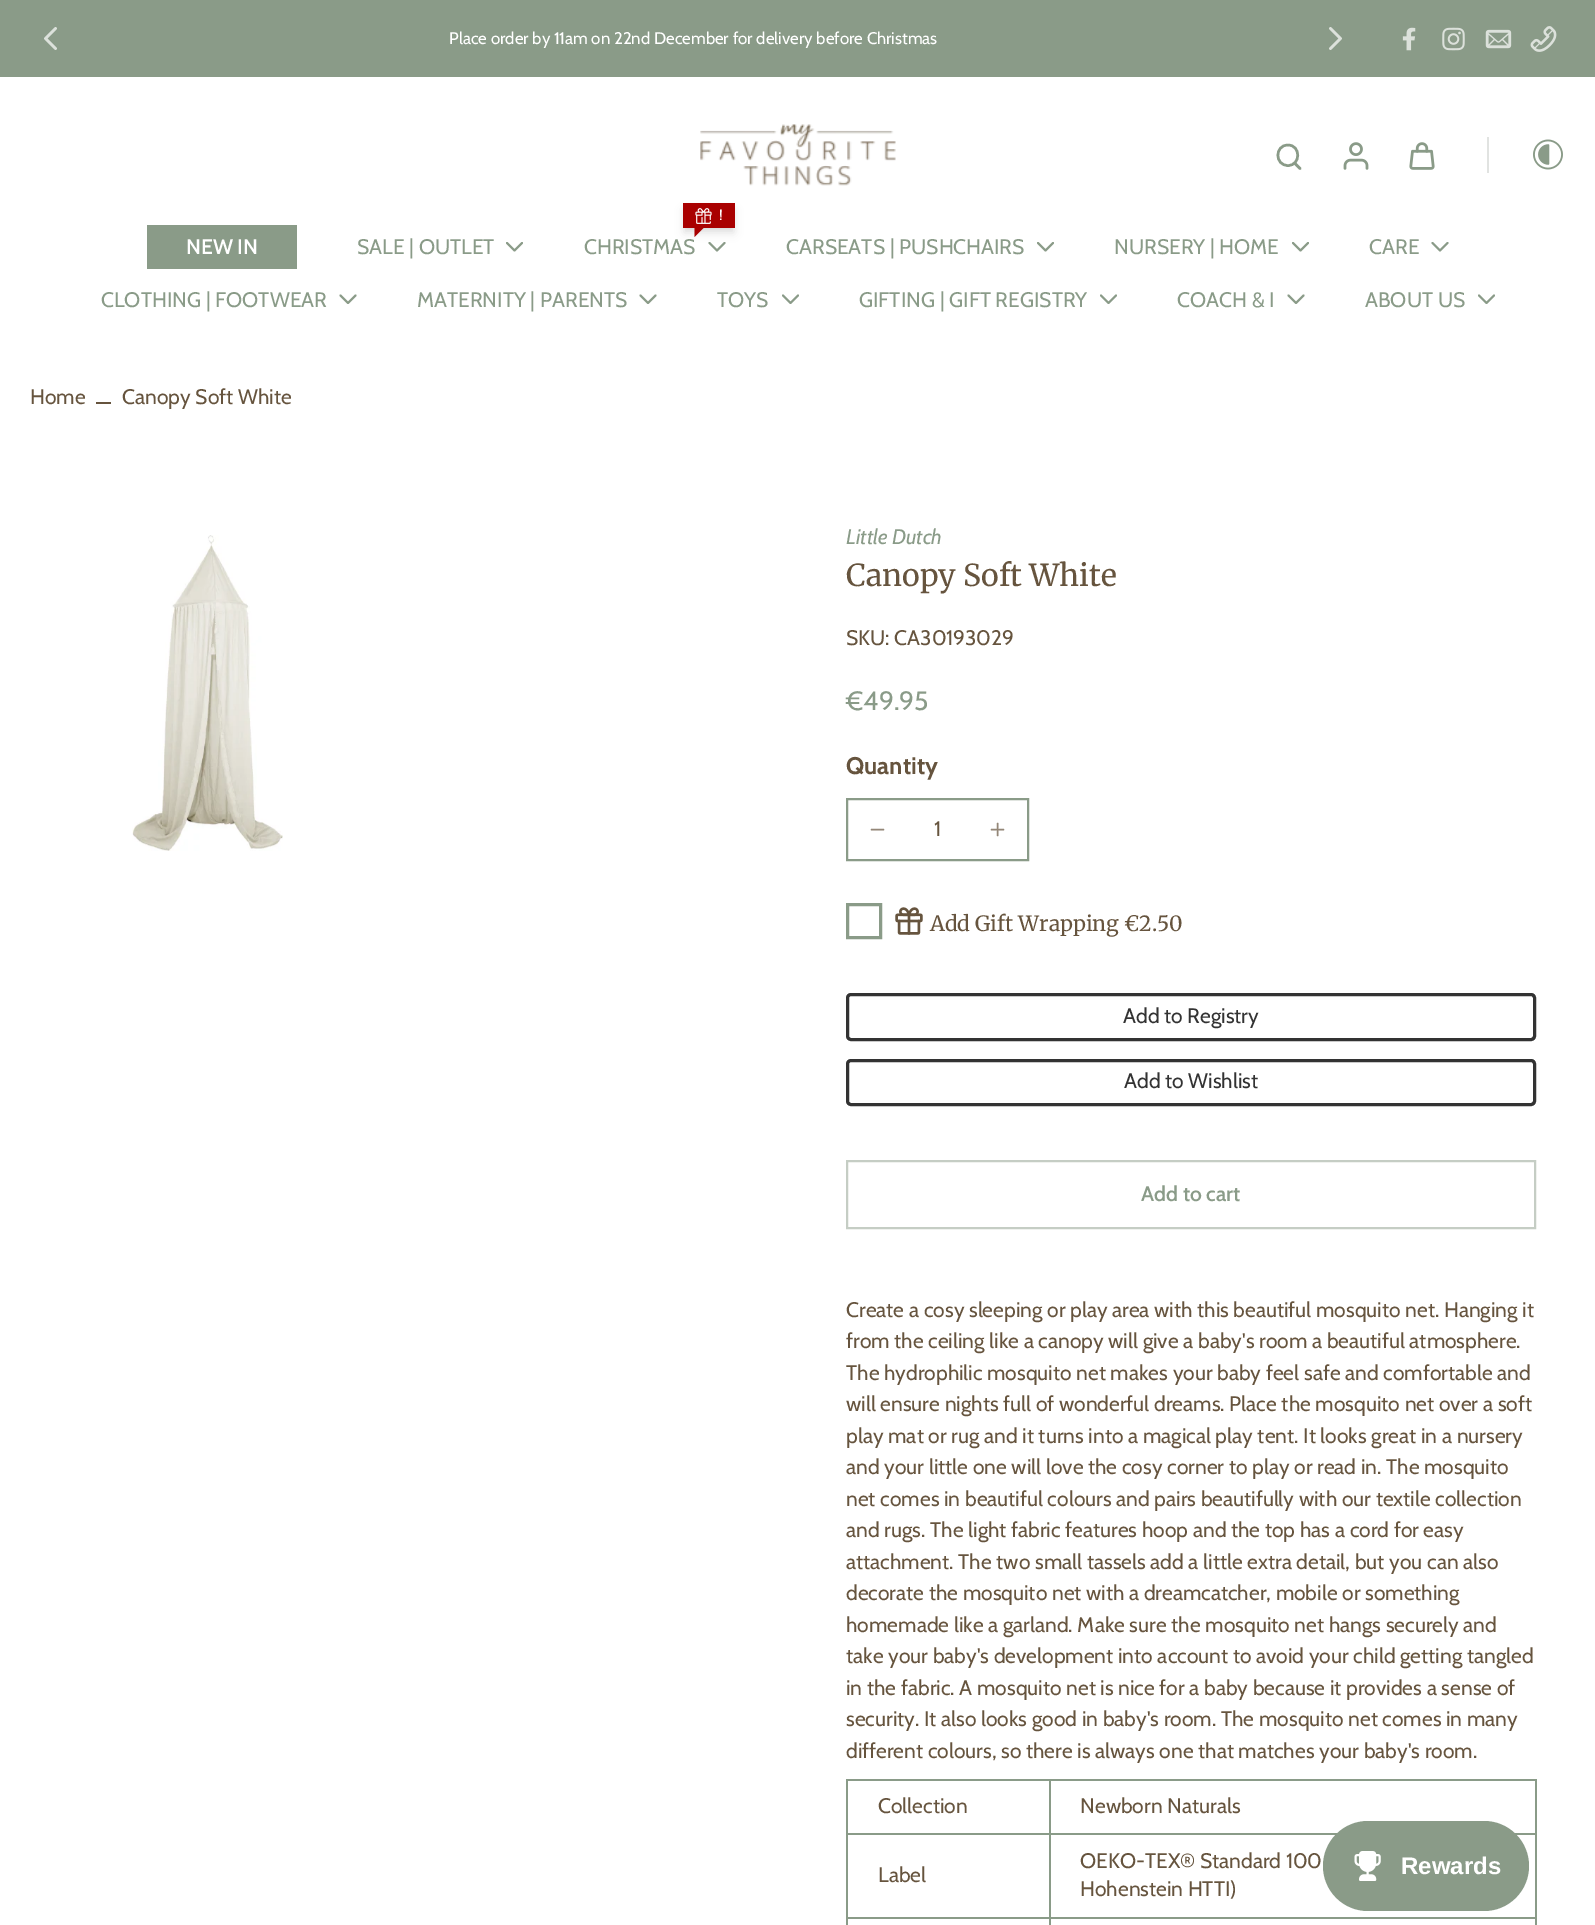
%!PS
<< /PageSize [1595 1925] /PageUsesTransparency true >> setpagedevice
/rgb { 3 { 255 div 3 1 roll } repeat setrgbcolor } def
/font { [ exch dup neg 0 0 3 -1 roll 0 0 ] selectfont } def
/text { moveto show } def
/alpha { dup .setfillconstantalpha .setstrokeconstantalpha } def
/roundrect { 5 dict begin { /r /h /w /y /x } { exch def } forall
  x r add y moveto x w add y 2 copy h add r arct x w add y h add x 1 index r arct
  x y h add x y r arct x y 2 copy exch w add exch r arct closepath end } def
/shadow { 12 dict begin { /a /b /q /h /w /y /x } { exch def } forall gsave /was 0 def
  9 -2 -9 { dup b mul 4 div /e exch def 1 sub .425 mul 2.718 exch exp 1 add a .99 .min exch div /now exch def
    1 1 now sub 1 was sub div sub alpha /was now def
    w h .min e 2 mul add 0 gt { x e sub y e sub w e 2 mul add h e 2 mul add
      q e add b .6 mul add w h .min 2 div e add .min 0 .max roundrect fill } if } for grestore end } def
/picture { 5 dict begin { /h /w /y /x /name } { exch def } forall
  gsave x y translate w h scale
  w h 8 [w 0 0 h 0 0] name (r) file false 3 colorimage grestore end } def
0 .pushpdf14devicefilter
0 1925 translate 1 -1 scale
4 setmiterlimit
255 255 255 rgb
0 0 1595 1925 rectfill
138 155 136 rgb
0 0 1595 77 rectfill
220 225 219 rgb
2.7 setlinewidth
1 setlinecap
1 setlinejoin
55.5 28.5 moveto -10 10 rlineto 10 10 rlineto stroke
1330.5 48.5 moveto 10 -10 rlineto -10 -10 rlineto stroke
(img_01.rgb) 1402 27 14 24 picture
(img_02.rgb) 1442 27 23 24 picture
(img_03.rgb) 1485 29 27 20 picture
(img_04.rgb) 1530 26 27 26 picture
(img_05.rgb) 700 124 196 62 picture
138 155 136 rgb
2.5 setlinewidth
0 setlinecap
0 setlinejoin
1288 165.5 moveto 13 0 13 -20.5 0 -20.5 rcurveto -13.5 0 -13.5 20.5 0 20.5 rcurveto closepath stroke
1 setlinecap
1295 163.5 moveto 5 5 rlineto stroke
(img_06.rgb) 1343 142 26 28 picture
(img_07.rgb) 1409 142 26 28 picture
225 227 225 rgb
1487 137 2 36 rectfill
(img_08.rgb) 1533 139 30 31 picture
138 155 136 rgb
147 225 150 44 rectfill
2 setlinewidth
1 setlinejoin
507 243 moveto 7.5 7.5 rlineto 7.5 -7.5 rlineto stroke
0 0 0 rgb
686 209 46 19 0 3 0.1 shadow
138 155 136 rgb
709.5 243 moveto 7.5 7.5 rlineto 7.5 -7.5 rlineto stroke
0 0 0 rgb
684 210 50 23 0 4.5 0.1 shadow
169 0 0 rgb
683 203 52 25 rectfill
(img_09.rgb) 695 208 17 16 picture
694.5 225 moveto 12 0 rlineto -12 12 rlineto closepath fill
138 155 136 rgb
1038 243 moveto 7.5 7.5 rlineto 7.5 -7.5 rlineto stroke
1293 243 moveto 7.5 7.5 rlineto 7.5 -7.5 rlineto stroke
1432.5 243 moveto 7.5 7.5 rlineto 7.5 -7.5 rlineto stroke
340.5 295.5 moveto 7.5 7.5 rlineto 7.5 -7.5 rlineto stroke
640.5 295.5 moveto 7.5 7.5 rlineto 7.5 -7.5 rlineto stroke
783 295.5 moveto 7.5 7.5 rlineto 7.5 -7.5 rlineto stroke
1101 295.5 moveto 7.5 7.5 rlineto 7.5 -7.5 rlineto stroke
1288.5 295.5 moveto 7.5 7.5 rlineto 7.5 -7.5 rlineto stroke
1479 295.5 moveto 7.5 7.5 rlineto 7.5 -7.5 rlineto stroke
102 84 62 rgb
96 402 15 2 rectfill
(img_10.rgb) 132 535 151 316 picture
138 155 136 rgb
0 setlinecap
0 setlinejoin
847 799 181 61 rectstroke
148 135 120 rgb
1.5 setlinewidth
1 setlinecap
1 setlinejoin
871.5 829.5 moveto 12 0 rlineto stroke
991.5 829.5 moveto 12 0 rlineto 997.5 823.5 moveto 0 12 rlineto stroke
138 155 136 rgb
3 setlinewidth
0 setlinecap
0 setlinejoin
847.5 904.5 33 33 rectstroke
(img_11.rgb) 895 907 28 28 picture
51 51 51 rgb
847.5 994.5 687 45 3.5 roundrect stroke
847.5 1060.5 687 44 3.5 roundrect stroke
197 205 196 rgb
2 setlinewidth
847 1161 688 67 rectstroke
138 155 136 rgb
1049 1779 487 2 rectfill
1049 1833 487 2 rectfill
1049 1917 487 2 rectfill
1049 1917 2 8 rectfill
846 1917 204 2 rectfill
1049 1833 2 86 rectfill
846 1833 204 2 rectfill
1049 1779 2 56 rectfill
846 1779 204 2 rectfill
846 1917 2 8 rectfill
846 1833 2 86 rectfill
846 1779 2 56 rectfill
1535 1917 2 8 rectfill
1535 1833 2 86 rectfill
1535 1779 2 56 rectfill
1323 1821 206 90 45 roundrect fill
(img_12.rgb) 1354 1851 27 30 picture
/Cabin-Regular 16.8 font
255 255 255 rgb
(Place order by 11am on 22nd December for delivery before Christmas) 449 44 text
/Cabin-SemiBold 21 font
(NEW IN) 186 254 text
/Cabin-Regular 21 font
138 155 136 rgb
(SALE | OUTLET) 357 254 text
/Cabin-Regular 15 font
255 255 255 rgb
(!) 719 220 text
/Cabin-Regular 21 font
138 155 136 rgb
(CHRISTMAS) 584 254 text
(CARSEATS | PUSHCHAIRS) 786 254 text
(NURSERY | HOME) 1114 254 text
(CARE) 1369 254 text
(CLOTHING | FOOTWEAR) 101 307 text
(MATERNITY | PARENTS) 417 307 text
(TOYS) 717 307 text
(GIFTING | GIFT REGISTRY) 859 307 text
(COACH & I) 1177 307 text
(ABOUT US) 1365 307 text
102 84 62 rgb
(Home) 30 404 text
(Canopy Soft White) 122 404 text
/Cabin-Italic 21 font
138 155 136 rgb
(Little Dutch) 846 544 text
/Merriweather-Regular 30.25 font
102 84 62 rgb
(Canopy Soft White) 846 586 text
/Cabin-Regular 21 font
(SKU: CA30193029) 846 645 text
/Cabin-Regular 26.5 font
138 155 136 rgb
(€49.95) 846 710 text
/Cabin-Bold 24 font
102 84 62 rgb
(Quantity) 846 774 text
/Cabin-Regular 21 font
(1) 934 836 text
/Merriweather-Regular 21 font
(Add Gift Wrapping €2.50) 930 931 text
/Cabin-Regular 21 font
51 51 51 rgb
(Add to Registry) 1123 1023 text
(Add to Wishlist) 1124 1088 text
/Cabin-SemiBold 21 font
138 155 136 rgb
(Add to cart) 1141 1201 text
/Cabin-Regular 21 font
102 84 62 rgb
(Create a cosy sleeping or play area with this beautiful mosquito net. Hanging it) 846 1317 text
(from the ceiling like a canopy will give a baby's room a beautiful atmosphere.) 846 1348 text
(The hydrophilic mosquito net makes your baby feel safe and comfortable and) 846 1380 text
(will ensure nights full of wonderful dreams. Place the mosquito net over a soft) 846 1411 text
(play mat or rug and it turns into a magical play tent. It looks great in a nursery) 846 1443 text
(and your little one will love the cosy corner to play or read in. The mosquito) 846 1474 text
(net comes in beautiful colours and pairs beautifully with our textile collection) 846 1506 text
(and rugs. The light fabric features hoop and the top has a cord for easy) 846 1537 text
(attachment. The two small tassels add a little extra detail, but you can also) 846 1569 text
(decorate the mosquito net with a dreamcatcher, mobile or something) 846 1600 text
(homemade like a garland. Make sure the mosquito net hangs securely and) 846 1632 text
(take your baby's development into account to avoid your child getting tangled) 846 1663 text
(in the fabric. A mosquito net is nice for a baby because it provides a sense of) 846 1695 text
(security. It also looks good in baby's room. The mosquito net comes in many) 846 1726 text
(different colours, so there is always one that matches your baby's room.) 846 1758 text
(Collection) 878 1813 text
(Newborn Naturals) 1080 1813 text
(Label) 878 1882 text
(OEKO-TEX® Standard 100) 1080 1868 text
(Hohenstein HTTI\)) 1080 1896 text
/LiberationSans-Bold 24 font
255 255 255 rgb
(Rewards) 1401 1874 text
.poppdf14devicefilter showpage
